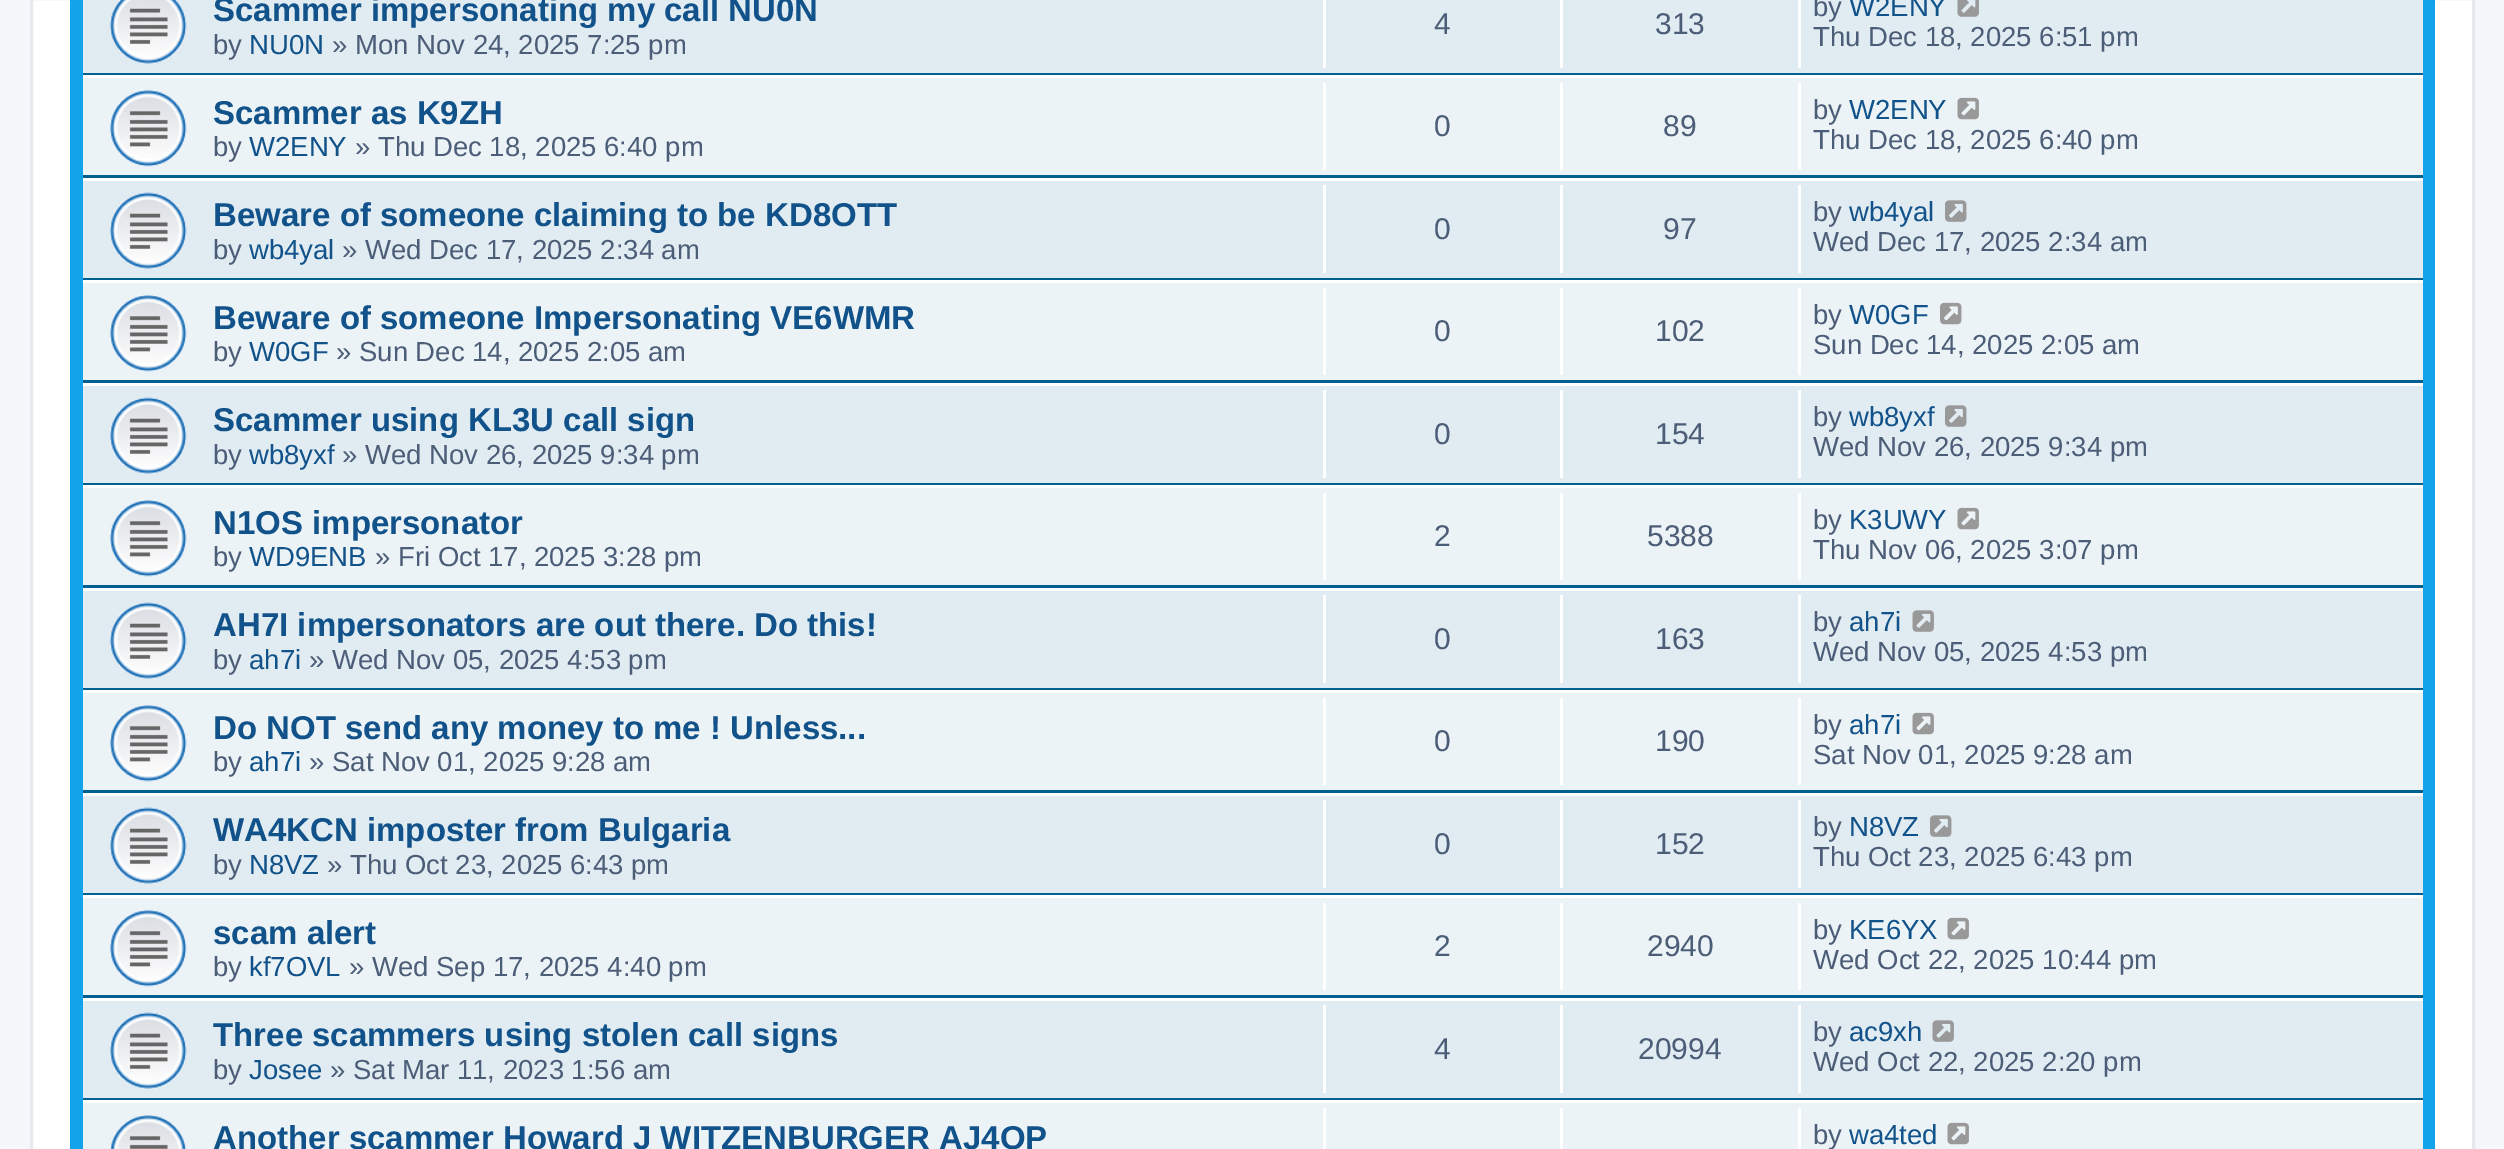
%!PS
<< /PageSize [2504 1149] >> setpagedevice
/rgb { 3 { 255 div 3 1 roll } repeat setrgbcolor } def
/font { [ exch dup neg 0 0 3 -1 roll 0 0 ] selectfont } def
/text { moveto show } def
/picture { 5 dict begin { /h /w /y /x /name } { exch def } forall
  gsave x y translate w h scale
  w h 8 [w 0 0 h 0 0] name (r) file false 3 colorimage grestore end } def
0 1149 translate 1 -1 scale
4 setmiterlimit
245 247 250 rgb
0 0 2504 1149 rectfill
255 255 255 rgb
31.5 -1.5 moveto 2442 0 rlineto 0 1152 rlineto -2442 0 rlineto closepath gsave fill grestore
230 233 237 rgb
3 setlinewidth
stroke
18 163 235 rgb
70 0 2365 1149 rectfill
225 235 242 rgb
83 0 2340 73 rectfill
0 96 143 rgb
83 73 2340 2 rectfill
(img_01.rgb) 109 0 78 64 picture
255 255 255 rgb
1323 0 3 68 rectfill
1560 0 3 68 rectfill
1798 0 3 68 rectfill
(img_02.rgb) 1957 0 22 17 picture
236 243 247 rgb
83 78 2340 97 rectfill
255 255 255 rgb
83 75 2340 3 rectfill
0 96 143 rgb
83 175 2340 3 rectfill
(img_03.rgb) 109 89 78 78 picture
255 255 255 rgb
1323 83 3 87 rectfill
1560 83 3 87 rectfill
1798 83 3 87 rectfill
(img_04.rgb) 1957 97 22 23 picture
225 235 242 rgb
83 181 2340 97 rectfill
255 255 255 rgb
83 178 2340 3 rectfill
0 96 143 rgb
83 278 2340 2 rectfill
(img_05.rgb) 109 192 78 77 picture
255 255 255 rgb
1323 185 3 88 rectfill
1560 185 3 88 rectfill
1798 185 3 88 rectfill
(img_06.rgb) 1945 200 22 22 picture
236 243 247 rgb
83 283 2340 97 rectfill
255 255 255 rgb
83 280 2340 3 rectfill
0 96 143 rgb
83 380 2340 3 rectfill
(img_03.rgb) 109 294 78 78 picture
255 255 255 rgb
1323 288 3 87 rectfill
1560 288 3 87 rectfill
1798 288 3 87 rectfill
(img_07.rgb) 1940 302 22 23 picture
225 235 242 rgb
83 386 2340 97 rectfill
255 255 255 rgb
83 383 2340 3 rectfill
0 96 143 rgb
83 483 2340 2 rectfill
(img_05.rgb) 109 397 78 77 picture
255 255 255 rgb
1323 390 3 88 rectfill
1560 390 3 88 rectfill
1798 390 3 88 rectfill
(img_06.rgb) 1945 405 22 22 picture
236 243 247 rgb
83 488 2340 97 rectfill
255 255 255 rgb
83 485 2340 3 rectfill
0 96 143 rgb
83 585 2340 3 rectfill
(img_03.rgb) 109 499 78 78 picture
255 255 255 rgb
1323 493 3 87 rectfill
1560 493 3 87 rectfill
1798 493 3 87 rectfill
(img_04.rgb) 1957 507 22 23 picture
225 235 242 rgb
83 591 2340 97 rectfill
255 255 255 rgb
83 588 2340 3 rectfill
0 96 143 rgb
83 688 2340 2 rectfill
(img_05.rgb) 109 602 78 77 picture
255 255 255 rgb
1323 595 3 88 rectfill
1560 595 3 88 rectfill
1798 595 3 88 rectfill
(img_08.rgb) 1912 610 22 22 picture
236 243 247 rgb
83 693 2340 97 rectfill
255 255 255 rgb
83 690 2340 3 rectfill
0 96 143 rgb
83 790 2340 3 rectfill
(img_03.rgb) 109 704 78 78 picture
255 255 255 rgb
1323 698 3 87 rectfill
1560 698 3 87 rectfill
1798 698 3 87 rectfill
(img_04.rgb) 1912 712 22 23 picture
225 235 242 rgb
83 796 2340 97 rectfill
255 255 255 rgb
83 793 2340 3 rectfill
0 96 143 rgb
83 893 2340 2 rectfill
(img_05.rgb) 109 807 78 77 picture
255 255 255 rgb
1323 800 3 88 rectfill
1560 800 3 88 rectfill
1798 800 3 88 rectfill
(img_06.rgb) 1930 815 22 22 picture
236 243 247 rgb
83 898 2340 97 rectfill
255 255 255 rgb
83 895 2340 3 rectfill
0 96 143 rgb
83 995 2340 3 rectfill
(img_03.rgb) 109 909 78 78 picture
255 255 255 rgb
1323 903 3 87 rectfill
1560 903 3 87 rectfill
1798 903 3 87 rectfill
(img_04.rgb) 1947 917 22 23 picture
225 235 242 rgb
83 1001 2340 97 rectfill
255 255 255 rgb
83 998 2340 3 rectfill
0 96 143 rgb
83 1098 2340 2 rectfill
(img_05.rgb) 109 1012 78 77 picture
255 255 255 rgb
1323 1005 3 88 rectfill
1560 1005 3 88 rectfill
1798 1005 3 88 rectfill
(img_08.rgb) 1932 1020 22 22 picture
236 243 247 rgb
83 1103 2340 46 rectfill
255 255 255 rgb
83 1100 2340 3 rectfill
(img_09.rgb) 110 1114 77 35 picture
1323 1108 3 41 rectfill
1560 1108 3 41 rectfill
1798 1108 3 41 rectfill
(img_04.rgb) 1947 1122 22 23 picture
/LiberationSans-Bold 33 font
16 82 137 rgb
(Scammer impersonating my call NU0N) 213 21 text
/LiberationSans-Regular 27.5 font
76 93 119 rgb
(by) 213 54 text
16 82 137 rgb
(NU0N) 249 54 text
76 93 119 rgb
(» Mon Nov 24, 2025 7:25 pm) 332 54 text
/LiberationSans-Regular 30 font
(4) 1434 34 text
(313) 1655 34 text
/LiberationSans-Regular 27.5 font
(by) 1813 16 text
16 82 137 rgb
(W2ENY) 1849 16 text
76 93 119 rgb
(Thu Dec 18, 2025 6:51 pm) 1813 46 text
/LiberationSans-Bold 33 font
16 82 137 rgb
(Scammer as K9ZH) 213 124 text
/LiberationSans-Regular 27.5 font
76 93 119 rgb
(by) 213 156 text
16 82 137 rgb
(W2ENY) 249 156 text
76 93 119 rgb
(» Thu Dec 18, 2025 6:40 pm) 355 156 text
/LiberationSans-Regular 30 font
(0) 1434 136 text
(89) 1663 136 text
/LiberationSans-Regular 27.5 font
(by) 1813 119 text
16 82 137 rgb
(W2ENY) 1849 119 text
76 93 119 rgb
(Thu Dec 18, 2025 6:40 pm) 1813 149 text
/LiberationSans-Bold 33 font
16 82 137 rgb
(Beware of someone claiming to be KD8OTT) 213 226 text
/LiberationSans-Regular 27.5 font
76 93 119 rgb
(by) 213 259 text
16 82 137 rgb
(wb4yal) 249 259 text
76 93 119 rgb
(» Wed Dec 17, 2025 2:34 am) 342 259 text
/LiberationSans-Regular 30 font
(0) 1434 239 text
(97) 1663 239 text
/LiberationSans-Regular 27.5 font
(by) 1813 221 text
16 82 137 rgb
(wb4yal) 1849 221 text
76 93 119 rgb
(Wed Dec 17, 2025 2:34 am) 1813 251 text
/LiberationSans-Bold 33 font
16 82 137 rgb
(Beware of someone Impersonating VE6WMR) 213 329 text
/LiberationSans-Regular 27.5 font
76 93 119 rgb
(by) 213 361 text
16 82 137 rgb
(W0GF) 249 361 text
76 93 119 rgb
(» Sun Dec 14, 2025 2:05 am) 336 361 text
/LiberationSans-Regular 30 font
(0) 1434 341 text
(102) 1655 341 text
/LiberationSans-Regular 27.5 font
(by) 1813 324 text
16 82 137 rgb
(W0GF) 1849 324 text
76 93 119 rgb
(Sun Dec 14, 2025 2:05 am) 1813 354 text
/LiberationSans-Bold 33 font
16 82 137 rgb
(Scammer using KL3U call sign) 213 431 text
/LiberationSans-Regular 27.5 font
76 93 119 rgb
(by) 213 464 text
16 82 137 rgb
(wb8yxf) 249 464 text
76 93 119 rgb
(» Wed Nov 26, 2025 9:34 pm) 342 464 text
/LiberationSans-Regular 30 font
(0) 1434 444 text
(154) 1655 444 text
/LiberationSans-Regular 27.5 font
(by) 1813 426 text
16 82 137 rgb
(wb8yxf) 1849 426 text
76 93 119 rgb
(Wed Nov 26, 2025 9:34 pm) 1813 456 text
/LiberationSans-Bold 33 font
16 82 137 rgb
(N1OS impersonator) 213 534 text
/LiberationSans-Regular 27.5 font
76 93 119 rgb
(by) 213 566 text
16 82 137 rgb
(WD9ENB) 249 566 text
76 93 119 rgb
(» Fri Oct 17, 2025 3:28 pm) 375 566 text
/LiberationSans-Regular 30 font
(2) 1434 546 text
(5388) 1647 546 text
/LiberationSans-Regular 27.5 font
(by) 1813 529 text
16 82 137 rgb
(K3UWY) 1849 529 text
76 93 119 rgb
(Thu Nov 06, 2025 3:07 pm) 1813 559 text
/LiberationSans-Bold 33 font
16 82 137 rgb
(AH7I impersonators are out there. Do this!) 213 636 text
/LiberationSans-Regular 27.5 font
76 93 119 rgb
(by) 213 669 text
16 82 137 rgb
(ah7i) 249 669 text
76 93 119 rgb
(» Wed Nov 05, 2025 4:53 pm) 309 669 text
/LiberationSans-Regular 30 font
(0) 1434 649 text
(163) 1655 649 text
/LiberationSans-Regular 27.5 font
(by) 1813 631 text
16 82 137 rgb
(ah7i) 1849 631 text
76 93 119 rgb
(Wed Nov 05, 2025 4:53 pm) 1813 661 text
/LiberationSans-Bold 33 font
16 82 137 rgb
(Do NOT send any money to me ! Unless...) 213 739 text
/LiberationSans-Regular 27.5 font
76 93 119 rgb
(by) 213 771 text
16 82 137 rgb
(ah7i) 249 771 text
76 93 119 rgb
(» Sat Nov 01, 2025 9:28 am) 309 771 text
/LiberationSans-Regular 30 font
(0) 1434 751 text
(190) 1655 751 text
/LiberationSans-Regular 27.5 font
(by) 1813 734 text
16 82 137 rgb
(ah7i) 1849 734 text
76 93 119 rgb
(Sat Nov 01, 2025 9:28 am) 1813 764 text
/LiberationSans-Bold 33 font
16 82 137 rgb
(WA4KCN imposter from Bulgaria) 213 841 text
/LiberationSans-Regular 27.5 font
76 93 119 rgb
(by) 213 874 text
16 82 137 rgb
(N8VZ) 249 874 text
76 93 119 rgb
(» Thu Oct 23, 2025 6:43 pm) 327 874 text
/LiberationSans-Regular 30 font
(0) 1434 854 text
(152) 1655 854 text
/LiberationSans-Regular 27.5 font
(by) 1813 836 text
16 82 137 rgb
(N8VZ) 1849 836 text
76 93 119 rgb
(Thu Oct 23, 2025 6:43 pm) 1813 866 text
/LiberationSans-Bold 33 font
16 82 137 rgb
(scam alert) 213 944 text
/LiberationSans-Regular 27.5 font
76 93 119 rgb
(by) 213 976 text
16 82 137 rgb
(kf7OVL) 249 976 text
76 93 119 rgb
(» Wed Sep 17, 2025 4:40 pm) 349 976 text
/LiberationSans-Regular 30 font
(2) 1434 956 text
(2940) 1647 956 text
/LiberationSans-Regular 27.5 font
(by) 1813 939 text
16 82 137 rgb
(KE6YX) 1849 939 text
76 93 119 rgb
(Wed Oct 22, 2025 10:44 pm) 1813 969 text
/LiberationSans-Bold 33 font
16 82 137 rgb
(Three scammers using stolen call signs) 213 1046 text
/LiberationSans-Regular 27.5 font
76 93 119 rgb
(by) 213 1079 text
16 82 137 rgb
(Josee) 249 1079 text
76 93 119 rgb
(» Sat Mar 11, 2023 1:56 am) 330 1079 text
/LiberationSans-Regular 30 font
(4) 1434 1059 text
(20994) 1638 1059 text
/LiberationSans-Regular 27.5 font
(by) 1813 1041 text
16 82 137 rgb
(ac9xh) 1849 1041 text
76 93 119 rgb
(Wed Oct 22, 2025 2:20 pm) 1813 1071 text
/LiberationSans-Bold 33 font
16 82 137 rgb
(Another scammer Howard J WITZENBURGER AJ4OP) 213 1149 text
/LiberationSans-Regular 27.5 font
76 93 119 rgb
(by) 1813 1144 text
16 82 137 rgb
(wa4ted) 1849 1144 text
showpage
